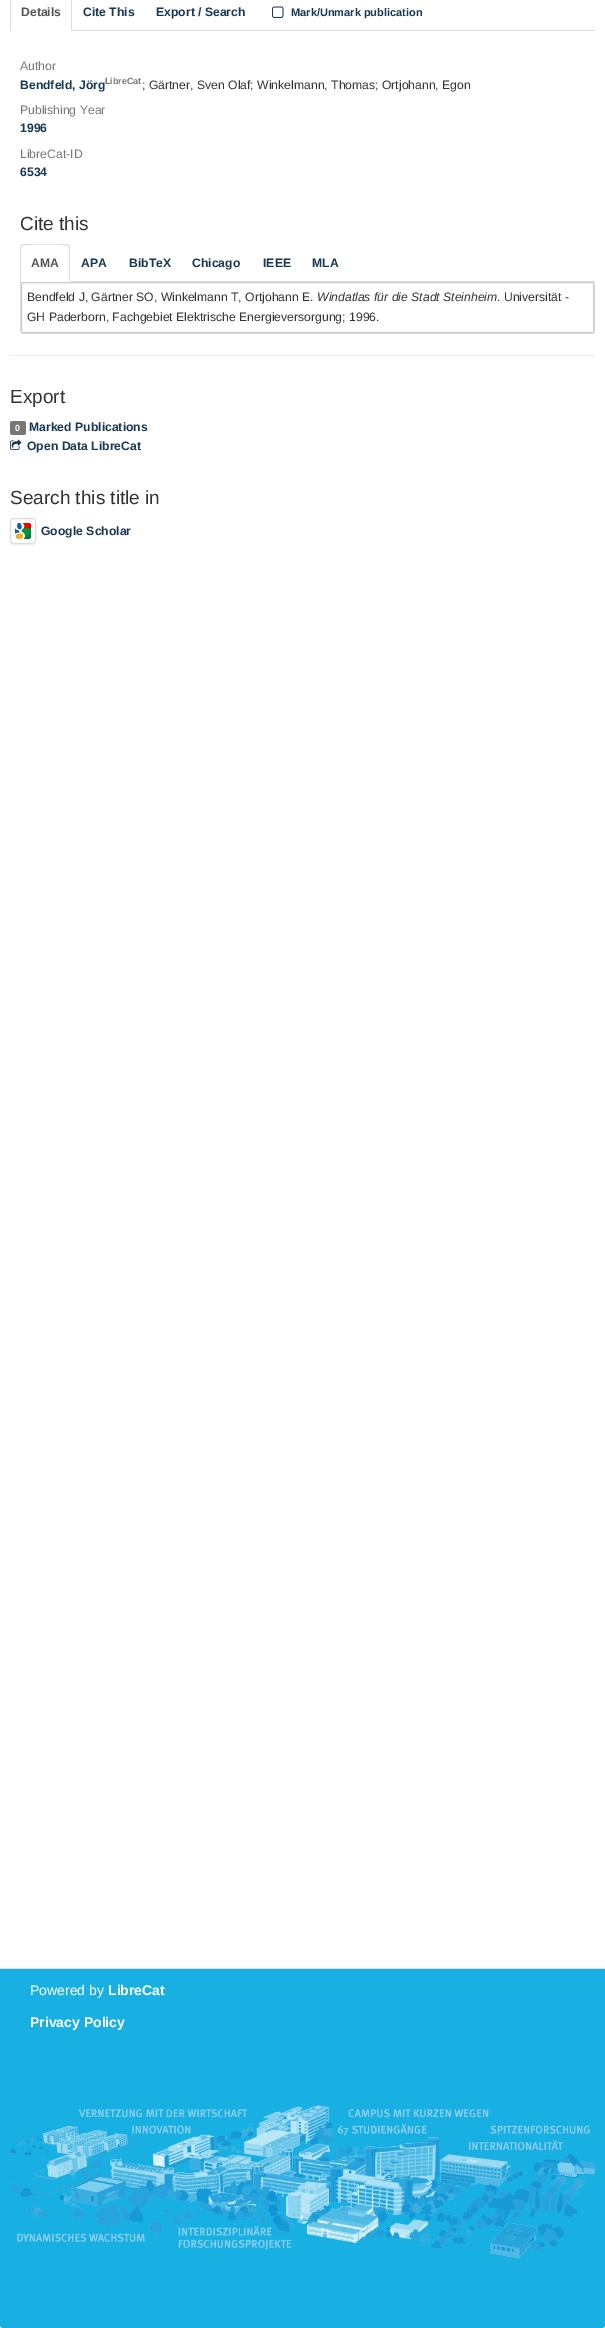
%!PS
<< /PageSize [605 2328] /PageUsesTransparency true >> setpagedevice
/rgb { 3 { 255 div 3 1 roll } repeat setrgbcolor } def
/font { [ exch dup neg 0 0 3 -1 roll 0 0 ] selectfont } def
/text { moveto show } def
/alpha { dup .setfillconstantalpha .setstrokeconstantalpha } def
/roundrect { 5 dict begin { /r /h /w /y /x } { exch def } forall
  x r add y moveto x w add y 2 copy h add r arct x w add y h add x 1 index r arct
  x y h add x y r arct x y 2 copy exch w add exch r arct closepath end } def
/shadow { 12 dict begin { /a /b /q /h /w /y /x } { exch def } forall gsave /was 0 def
  9 -2 -9 { dup b mul 4 div /e exch def 1 sub .425 mul 2.718 exch exp 1 add a .99 .min exch div /now exch def
    1 1 now sub 1 was sub div sub alpha /was now def
    w h .min e 2 mul add 0 gt { x e sub y e sub w e 2 mul add h e 2 mul add
      q e add b .6 mul add w h .min 2 div e add .min 0 .max roundrect fill } if } for grestore end } def
/picture { 5 dict begin { /h /w /y /x /name } { exch def } forall
  gsave x y translate w h scale
  w h 8 [w 0 0 h 0 0] name (r) file false 3 colorimage grestore end } def
0 .pushpdf14devicefilter
0 2328 translate 1 -1 scale
4 setmiterlimit
255 255 255 rgb
0 0 605 2328 rectfill
221 221 221 rgb
72 30 523 1 rectfill
72 31 moveto 0 -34 rlineto 0 -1 -0.5 -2 -1 -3 rcurveto -1 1 rlineto 1 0 1 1 1 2 rcurveto 0 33 rlineto closepath 10 31 moveto 1 -1 rlineto 0 -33 rlineto 0 -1 0 -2 1 -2 rcurveto -1 -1 rlineto -0.5 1 -1 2 -1 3 rcurveto closepath fill
(img_01.rgb) 272 6 12 12 picture
70 281 525 1 rectfill
24 244 moveto -3 1 rlineto 1 1 rlineto 1 -2 45 -2 46 0 rcurveto 1 -1 rlineto -3 -1 rlineto closepath fill
70 282 moveto 0 -34 rlineto 0 -1 -0.5 -2 -1 -3 rcurveto -1 1 rlineto 1 0 1 1 1 2 rcurveto 0 33 rlineto closepath 20 282 moveto 1 -1 rlineto 0 -33 rlineto 0 -1 0 -2 1 -2 rcurveto -1 -1 rlineto -0.5 1 -1 2 -1 3 rcurveto closepath fill
20 282 moveto 571 0 rlineto 2 0 4 2 4 4 rcurveto 0 44 rlineto 0 2 -2 4 -4 4 rcurveto -567 0 rlineto -2 0 -4 -2 -4 -4 rcurveto closepath 21 282 moveto 570 0 rlineto 2 0 3 2 3 4 rcurveto 0 44 rlineto 0 2 -1 3 -3 3 rcurveto -567 0 rlineto -2 0 -3 -1 -3 -3 rcurveto closepath eofill
204 204 204 rgb
21.5 282.5 572 50 rectstroke
238 238 238 rgb
10 355 585 1 rectfill
119 119 119 rgb
10 421 16 14 2.5 roundrect fill
(img_02.rgb) 10 439 12 11 picture
0 0 0 rgb
10 519 26 26 4 1 0.07 shadow
255 255 255 rgb
10.5 518.5 25 25 3.5 roundrect gsave fill grestore
221 221 221 rgb
stroke
(img_03.rgb) 15 523 16 16 picture
24 176 226 rgb
0 1968 moveto 605 0 rlineto 0 357 rlineto 0 1.5 -1.5 3 -3 3 rcurveto -599 0 rlineto -1.5 0 -3 -1.5 -3 -3 rcurveto closepath fill
221 221 221 rgb
0 1968 605 1 rectfill
(img_04.rgb) 10 2103 585 156 picture
/LiberationSans-Bold 12.2 font
85 85 85 rgb
(Details) 21 16 text
25 56 84 rgb
(Cite This) 83 16 text
(Export / Search) 156 16 text
/LiberationSans-Bold 11 font
(Mark/Unmark publication) 291 16 text
/LiberationSans-Regular 12.2 font
119 119 119 rgb
(Author) 20 70 text
/LiberationSans-Bold 12.2 font
25 56 84 rgb
(Bendfeld, Jörg) 20 89 text
/LiberationSans-Bold 9 font
119 119 119 rgb
(LibreCat) 105 84 text
/LiberationSans-Regular 12.2 font
51 51 51 rgb
(; Gärtner, Sven Olaf; Winkelmann, Thomas; Ortjohann, Egon) 142 89 text
119 119 119 rgb
(Publishing Year) 20 114 text
/LiberationSans-Bold 12.2 font
25 56 84 rgb
(1996) 20 132 text
/LiberationSans-Regular 12.2 font
119 119 119 rgb
(LibreCat-ID) 20 158 text
/LiberationSans-Bold 12.2 font
25 56 84 rgb
(6534) 20 176 text
/LiberationSans-Regular 19 font
51 51 51 rgb
(Cite this) 20 230 text
/LiberationSans-Bold 12.2 font
85 85 85 rgb
(AMA) 31 267 text
25 56 84 rgb
(APA) 81 267 text
(BibTeX) 129 267 text
(Chicago) 192 267 text
(IEEE) 263 267 text
(MLA) 312 267 text
/LiberationSans-Regular 12.2 font
51 51 51 rgb
(Bendfeld J, Gärtner SO, Winkelmann T, Ortjohann E.) 27 301 text
/LiberationSans-Italic 12.2 font
(Windatlas für die Stadt Steinheim) 317 301 text
/LiberationSans-Regular 12.2 font
(. Universität -) 497 301 text
(GH Paderborn, Fachgebiet Elektrische Energieversorgung; 1996.) 27 321 text
/LiberationSans-Regular 19 font
(Export) 10 403 text
/LiberationSans-Bold 9 font
255 255 255 rgb
(0) 15 431 text
/LiberationSans-Bold 12.2 font
25 56 84 rgb
(Marked Publications) 29 431 text
(Open Data LibreCat) 27 450 text
/LiberationSans-Regular 19 font
51 51 51 rgb
(Search this title in) 10 504 text
/LiberationSans-Bold 12.2 font
25 56 84 rgb
(Google Scholar) 41 535 text
/LiberationSans-Regular 14 font
255 255 255 rgb
(Powered by) 30 1995 text
/LiberationSans-Bold 14 font
(LibreCat) 108 1995 text
(Privacy Policy) 30 2027 text
.poppdf14devicefilter showpage
